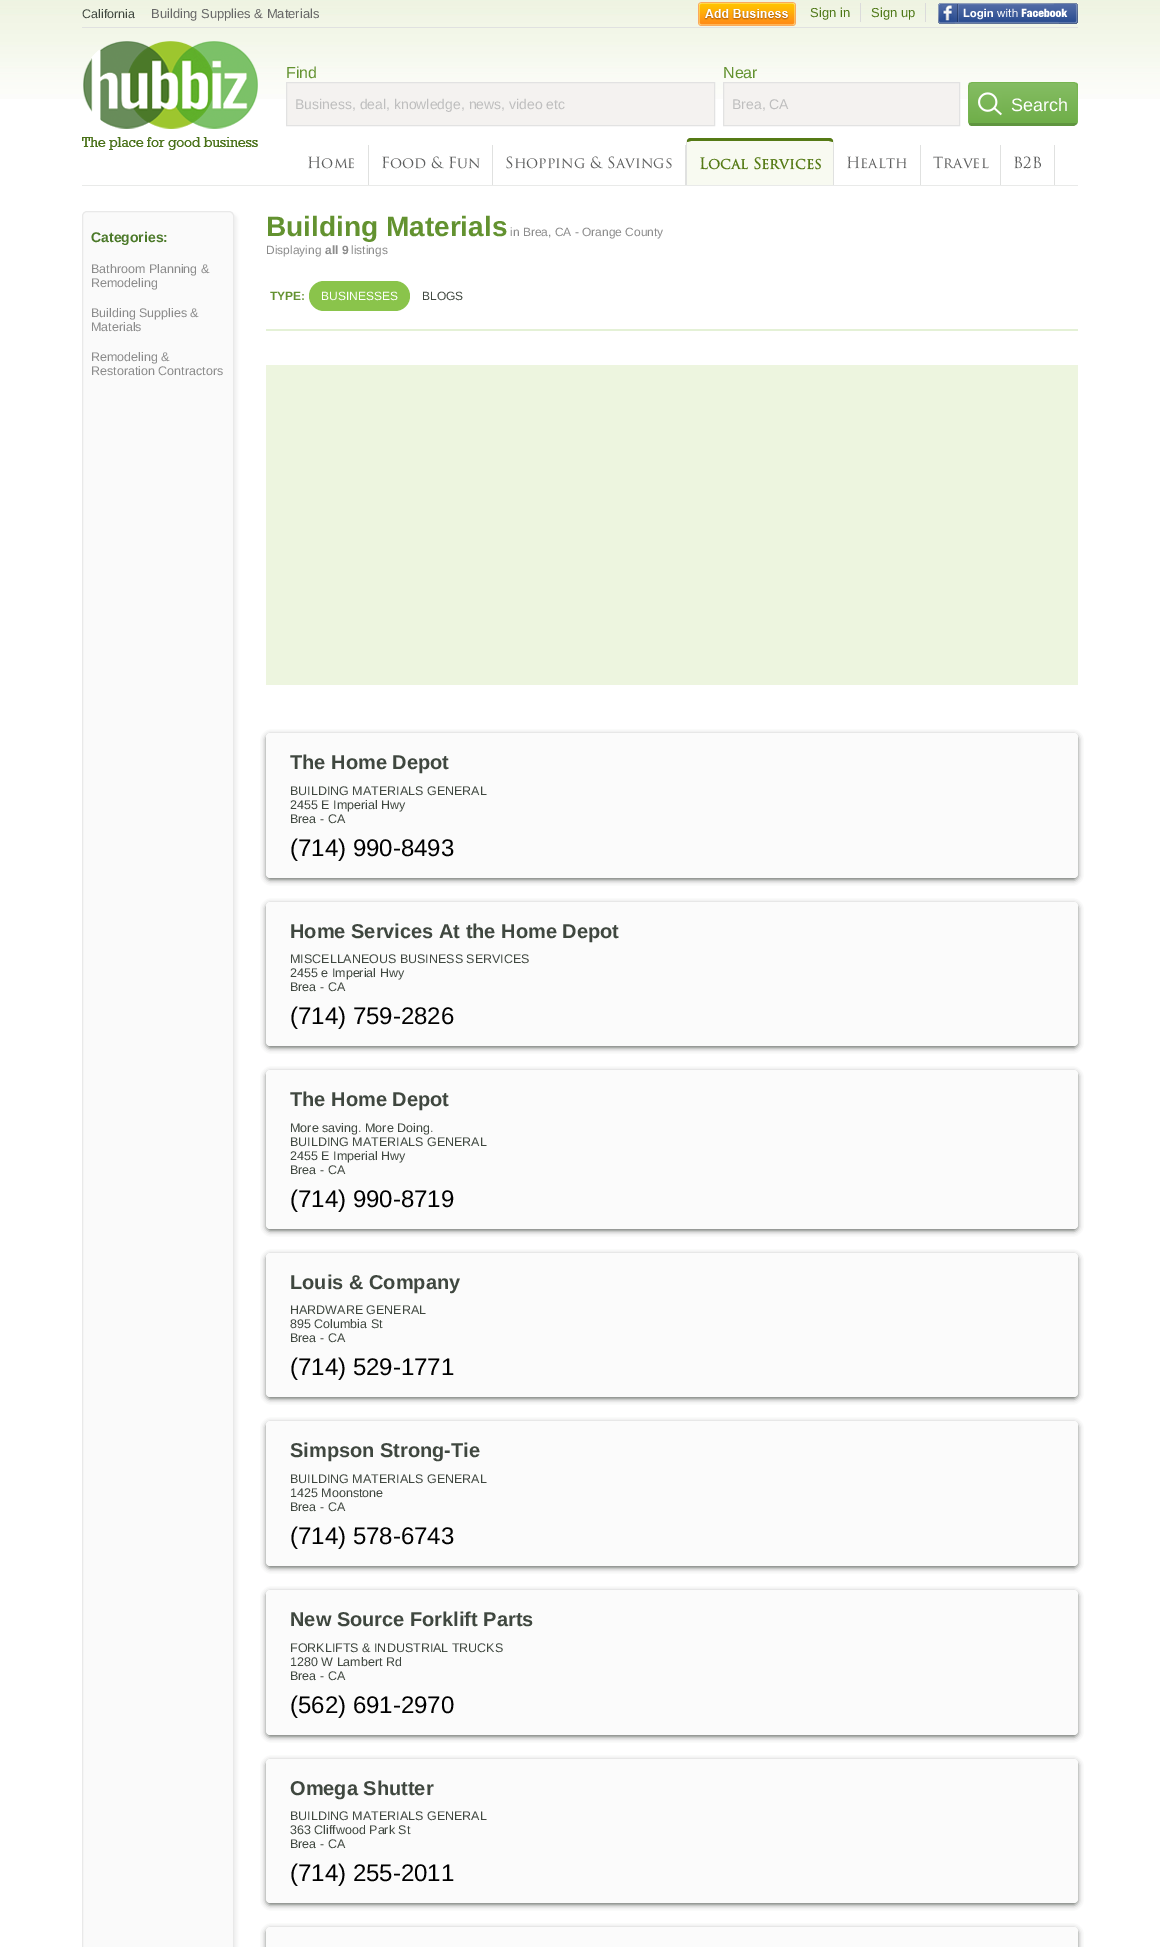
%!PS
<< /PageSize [1160 1947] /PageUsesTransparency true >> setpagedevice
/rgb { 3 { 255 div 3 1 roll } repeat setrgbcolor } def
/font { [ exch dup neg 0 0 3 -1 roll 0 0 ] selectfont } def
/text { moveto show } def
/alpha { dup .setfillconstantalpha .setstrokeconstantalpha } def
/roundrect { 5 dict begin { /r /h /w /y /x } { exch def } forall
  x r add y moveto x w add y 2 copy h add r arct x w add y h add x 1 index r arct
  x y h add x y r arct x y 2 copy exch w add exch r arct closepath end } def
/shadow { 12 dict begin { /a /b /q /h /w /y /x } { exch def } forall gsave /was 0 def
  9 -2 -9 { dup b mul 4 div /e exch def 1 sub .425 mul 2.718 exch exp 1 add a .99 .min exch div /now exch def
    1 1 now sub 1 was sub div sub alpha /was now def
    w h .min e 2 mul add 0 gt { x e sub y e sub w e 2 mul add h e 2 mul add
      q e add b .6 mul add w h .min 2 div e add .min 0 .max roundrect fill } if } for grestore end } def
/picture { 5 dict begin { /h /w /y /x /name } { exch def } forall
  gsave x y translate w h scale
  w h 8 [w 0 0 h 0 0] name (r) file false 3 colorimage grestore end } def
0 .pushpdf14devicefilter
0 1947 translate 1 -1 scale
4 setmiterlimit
255 255 255 rgb
0 0 1160 1947 rectfill
(img_01.rgb) 0 0 1160 99 picture
233 234 233 rgb
82 185 996 1 rectfill
224 225 224 rgb
82 27 996 1 rectfill
(img_02.rgb) 698 2 98 24 picture
219 219 219 rgb
860 3 1 19 rectfill
925 3 1 19 rectfill
(img_03.rgb) 938 3 140 21 picture
(img_04.rgb) 82 41 176 109 picture
244 242 240 rgb
286.5 82.5 moveto 428 0 rlineto 0 43 rlineto -428 0 rlineto closepath gsave fill grestore
226 226 226 rgb
stroke
244 242 240 rgb
723.5 82.5 moveto 236 0 rlineto 0 43 rlineto -236 0 rlineto closepath gsave fill grestore
226 226 226 rgb
stroke
gsave 972 83 moveto 102 0 rlineto 2 0 3 1 3 3 rcurveto 0 36 rlineto 0 1 -1 1 -3 1 rcurveto -102 0 rlineto -2 0 -3 0 -3 -1 rcurveto 0 -36 rlineto 0 -2 1 -3 3 -3 rcurveto closepath clip newpath
<< /ShadingType 2 /ColorSpace /DeviceRGB /Coords [1023 43 1023 123] /Extend [true true] /Function << /FunctionType 3 /Domain [0 1] /Functions [<< /FunctionType 2 /Domain [0 1] /C0 [0.592 0.859 0.431] /C1 [0.522 0.741 0.388] /N 1 >> << /FunctionType 2 /Domain [0 1] /C0 [0.522 0.741 0.388] /C1 [0.435 0.682 0.286] /N 1 >>] /Bounds [0.5] /Encode [0 1 0 1] >> >> shfill grestore
119 181 81 rgb
972 82 moveto -3 1 rlineto 1 1 rlineto 2 -1 rlineto 102 0 rlineto 2 1 rlineto 1 -1 rlineto -3 -1 rlineto closepath fill
1078 122 moveto 0 -36 rlineto 0 -1 0 -2 -1 -3 rcurveto -1 1 rlineto 2 1 1 38 1 39 rcurveto 0 1 rlineto closepath fill
95 149 63 rgb
972 126 moveto 102 0 rlineto 3 -2 rlineto 0 -1 rlineto -2 0 rlineto -103 0 rlineto -3 0 rlineto 0 1 rlineto 0 1 2 2 3 2 rcurveto closepath fill
119 181 81 rgb
968 86 moveto 0 36 rlineto 1 2 rlineto 0 -1 rlineto 0 -1 -1 -38 1 -39 rcurveto -1 -1 rlineto closepath fill
(img_05.rgb) 978 92 24 24 picture
224 225 224 rgb
368 145 1 40 rectfill
492 145 1 40 rectfill
685 145 1 40 rectfill
248 250 241 rgb
691 138 moveto 138 0 rlineto 3 0 5 2 5 5 rcurveto 0 42 rlineto -148 0 rlineto 0 -42 rlineto 0 -3 2 -5 5 -5 rcurveto closepath fill
85 122 21 rgb
691 138 moveto -2 0 -3 1 -4 2 rcurveto 0 2 rlineto 1 0 3 -1 4 -1 rcurveto 138 0 rlineto 1 0 3 1 4 1 rcurveto 0 -2 rlineto -1 -1 -2 -2 -4 -2 rcurveto closepath fill
224 225 224 rgb
833 185 moveto 1 0 rlineto 0 -42 rlineto -1 -3 rlineto 0 2 rlineto 0 1 0 38 0 43 rcurveto closepath fill
686 185 moveto 1 0 rlineto 0 -5 0 -42 0 -43 rcurveto 0 -2 rlineto -1 3 rlineto closepath fill
920 145 1 40 rectfill
1000 145 1 40 rectfill
1054 145 1 40 rectfill
0 0 0 rgb
85 214 152 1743 5 1.5 0.05 shadow
250 250 250 rgb
82.5 211.5 151 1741 4.5 roundrect gsave fill grestore
233 233 233 rgb
stroke
228 241 214 rgb
266 329 812 2 rectfill
138 196 75 rgb
309 281 101 30 15 roundrect fill
237 245 223 rgb
266 365 812 320 rectfill
63 71 63 rgb
267 736 810 143 3 3 1 shadow
251 251 251 rgb
266 733 812 145 4 roundrect fill
63 71 63 rgb
267 905 810 142 3 3 1 shadow
251 251 251 rgb
266 902 812 144 4 roundrect fill
63 71 63 rgb
267 1073 810 157 3 3 1 shadow
251 251 251 rgb
266 1070 812 159 4 roundrect fill
63 71 63 rgb
267 1256 810 142 3 3 1 shadow
251 251 251 rgb
266 1253 812 144 4 roundrect fill
63 71 63 rgb
267 1424 810 143 3 3 1 shadow
251 251 251 rgb
266 1421 812 145 4 roundrect fill
63 71 63 rgb
267 1593 810 143 3 3 1 shadow
251 251 251 rgb
266 1590 812 145 4 roundrect fill
63 71 63 rgb
267 1762 810 142 3 3 1 shadow
251 251 251 rgb
266 1759 812 144 4 roundrect fill
63 71 63 rgb
267 1930 810 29 3 3 1 shadow
251 251 251 rgb
266 1927 812 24 4 roundrect fill
/LiberationSans-Regular 12.5 font
63 71 63 rgb
(California) 82 18 text
/LiberationSans-Regular 13 font
103 103 103 rgb
(Building Supplies & Materials) 151 18 text
77 119 21 rgb
(Sign in) 810 17 text
(Sign up) 871 17 text
/LiberationSans-Regular 16 font
99 146 48 rgb
(Find) 286 78 text
/LiberationSans-Regular 14 font
190 190 190 rgb
(Business, deal, knowledge, news, video etc) 295 109 text
/LiberationSans-Regular 16 font
99 146 48 rgb
(Near) 723 78 text
/LiberationSans-Regular 14 font
190 190 190 rgb
(Brea, CA) 732 109 text
/LiberationSans-Regular 18 font
255 255 255 rgb
(Search) 1011 111 text
/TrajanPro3-Regular 15 font
93 94 94 rgb
(Home) 307 168 text
(Food & Fun) 381 168 text
(Shopping & Savings) 505 168 text
/TrajanPro3-Bold 15 font
85 122 21 rgb
(Local Services) 699 169 text
/TrajanPro3-Regular 15 font
93 94 94 rgb
(Health) 846 168 text
(Travel) 933 168 text
(B2B) 1013 168 text
/LiberationSans-Bold 14 font
75 121 41 rgb
(Categories:) 91 242 text
/LiberationSans-Regular 12.5 font
139 139 139 rgb
(Bathroom Planning &) 91 273 text
(Remodeling) 91 287 text
(Building Supplies &) 91 317 text
(Materials) 91 331 text
(Remodeling &) 91 361 text
(Restoration Contractors) 91 375 text
/LiberationSans-Bold 28 font
99 146 48 rgb
(Building Materials) 266 236 text
/LiberationSans-Regular 12 font
139 139 139 rgb
(in Brea, CA - Orange County) 510 236 text
(Displaying) 266 254 text
/LiberationSans-Bold 12 font
(all 9) 325 254 text
/LiberationSans-Regular 12 font
(listings) 351 254 text
/LiberationSans-Bold 12 font
99 146 48 rgb
(TYPE:) 270 300 text
/LiberationSans-Regular 12 font
255 255 255 rgb
(BUSINESSES) 321 300 text
63 71 63 rgb
(BLOGS) 422 300 text
/LiberationSans-Bold 20 font
(The Home Depot) 290 769 text
/LiberationSans-Regular 12.5 font
(BUILDING MATERIALS GENERAL) 290 795 text
(2455 E Imperial Hwy) 290 809 text
(Brea - CA) 290 823 text
/LiberationSans-Regular 24 font
0 0 0 rgb
(\(714\) 990-8493) 290 856 text
/LiberationSans-Bold 20 font
63 71 63 rgb
(Home Services At the Home Depot) 290 938 text
/LiberationSans-Regular 12.5 font
(MISCELLANEOUS BUSINESS SERVICES) 290 963 text
(2455 e Imperial Hwy) 290 977 text
(Brea - CA) 290 991 text
/LiberationSans-Regular 24 font
0 0 0 rgb
(\(714\) 759-2826) 290 1024 text
/LiberationSans-Bold 20 font
63 71 63 rgb
(The Home Depot) 290 1106 text
/LiberationSans-Regular 12.5 font
(More saving. More Doing.) 290 1132 text
(BUILDING MATERIALS GENERAL) 290 1146 text
(2455 E Imperial Hwy) 290 1160 text
(Brea - CA) 290 1174 text
/LiberationSans-Regular 24 font
0 0 0 rgb
(\(714\) 990-8719) 290 1207 text
/LiberationSans-Bold 20 font
63 71 63 rgb
(Louis & Company) 290 1289 text
/LiberationSans-Regular 12.5 font
(HARDWARE GENERAL) 290 1314 text
(895 Columbia St) 290 1328 text
(Brea - CA) 290 1342 text
/LiberationSans-Regular 24 font
0 0 0 rgb
(\(714\) 529-1771) 290 1375 text
/LiberationSans-Bold 20 font
63 71 63 rgb
(Simpson Strong-Tie) 290 1457 text
/LiberationSans-Regular 12.5 font
(BUILDING MATERIALS GENERAL) 290 1483 text
(1425 Moonstone) 290 1497 text
(Brea - CA) 290 1511 text
/LiberationSans-Regular 24 font
0 0 0 rgb
(\(714\) 578-6743) 290 1544 text
/LiberationSans-Bold 20 font
63 71 63 rgb
(New Source Forklift Parts) 290 1626 text
/LiberationSans-Regular 12.5 font
(FORKLIFTS & INDUSTRIAL TRUCKS) 290 1652 text
(1280 W Lambert Rd) 290 1666 text
(Brea - CA) 290 1680 text
/LiberationSans-Regular 24 font
0 0 0 rgb
(\(562\) 691-2970) 290 1713 text
/LiberationSans-Bold 20 font
63 71 63 rgb
(Omega Shutter) 290 1795 text
/LiberationSans-Regular 12.5 font
(BUILDING MATERIALS GENERAL) 290 1820 text
(363 Cliffwood Park St) 290 1834 text
(Brea - CA) 290 1848 text
/LiberationSans-Regular 24 font
0 0 0 rgb
(\(714\) 255-2011) 290 1881 text
.poppdf14devicefilter showpage
